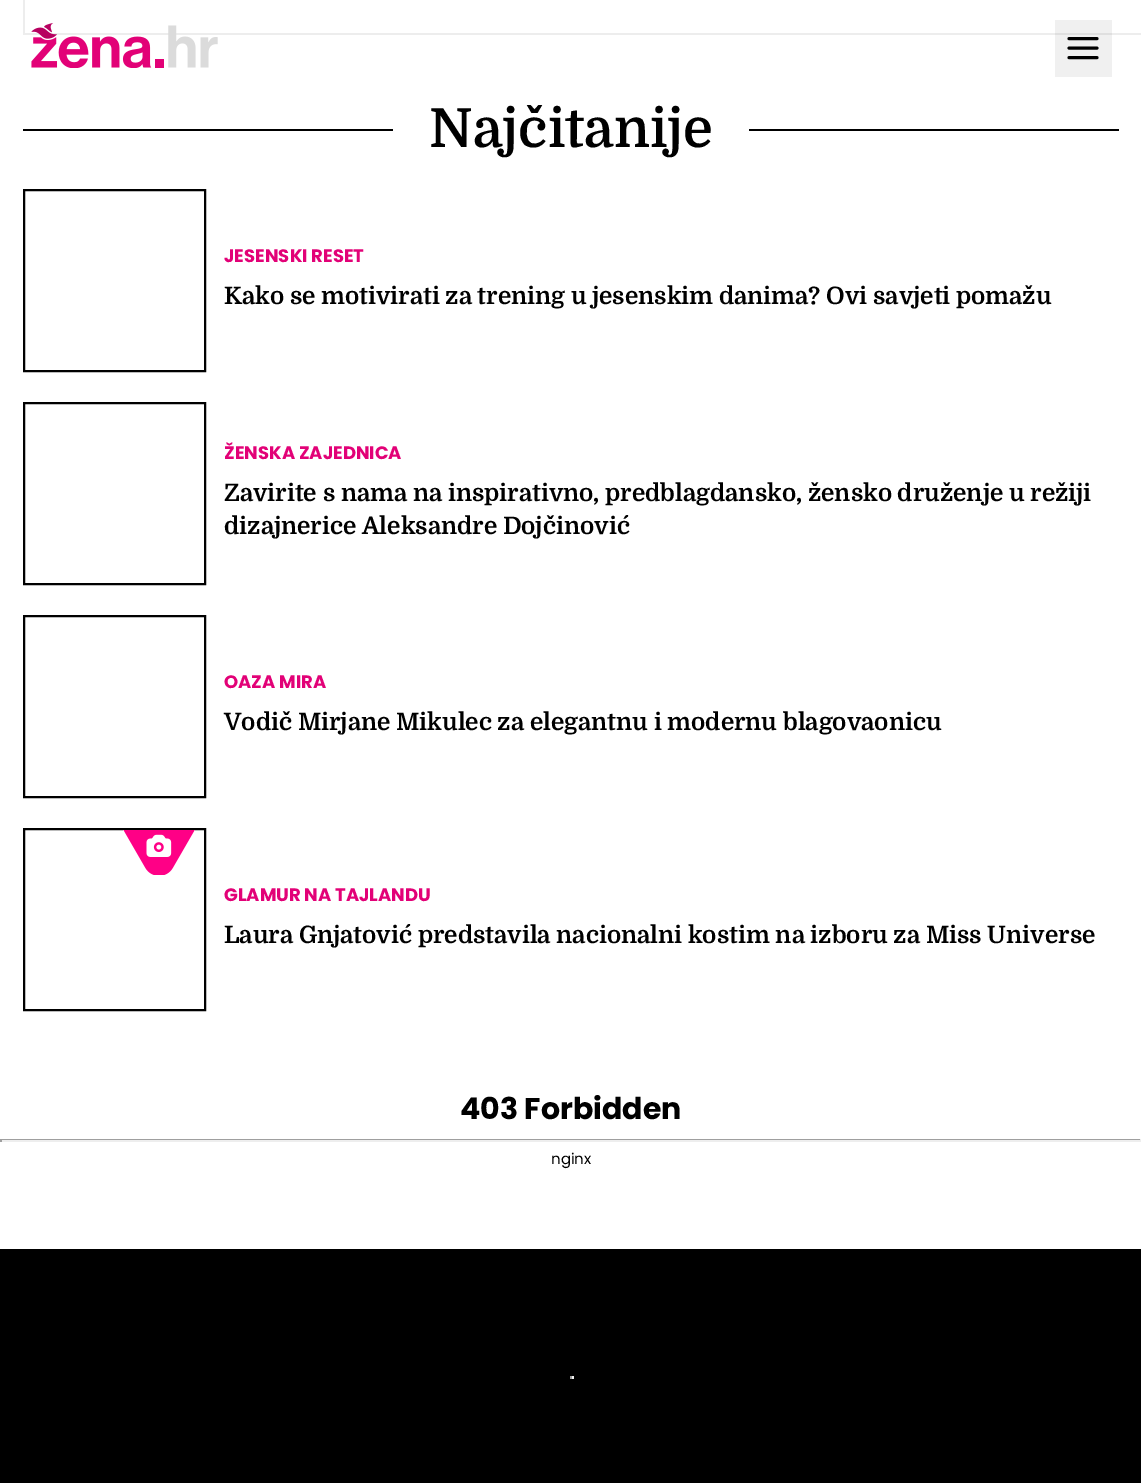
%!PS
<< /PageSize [1141 1483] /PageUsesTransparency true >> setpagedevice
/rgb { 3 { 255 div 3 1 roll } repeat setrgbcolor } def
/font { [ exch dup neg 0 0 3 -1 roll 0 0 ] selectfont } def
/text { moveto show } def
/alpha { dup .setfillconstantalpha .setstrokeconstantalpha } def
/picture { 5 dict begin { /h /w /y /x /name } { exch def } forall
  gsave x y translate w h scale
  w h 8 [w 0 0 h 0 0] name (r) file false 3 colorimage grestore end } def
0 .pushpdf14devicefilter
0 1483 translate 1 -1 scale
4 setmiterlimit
255 255 255 rgb
0 0 1141 1483 rectfill
237 237 237 rgb
23 33 1118 2 rectfill
(img_01.rgb) 31 23 187 45 picture
0.06 alpha
0 0 0 rgb
1055 20 57 57 rectfill
1 alpha
3 setlinewidth
1 setlinecap
1 setlinejoin
1069 48 moveto 28 0 rlineto 1069 38.5 moveto 28 0 rlineto 1069 57.5 moveto 28 0 rlineto stroke
237 237 237 rgb
23 0 2 35 rectfill
0 0 0 rgb
23 129 370 2 rectfill
749 129 370 2 rectfill
2 setlinewidth
0 setlinecap
0 setlinejoin
24 190 181 181 rectstroke
24 403 181 181 rectstroke
24 616 181 181 rectstroke
24 829 181 181 rectstroke
(img_02.rgb) 123 830 72 45 picture
159 159 159 rgb
0 1139 1141 1 rectfill
238 238 238 rgb
1140 1139 1 3 rectfill
0 1140 1141 2 rectfill
159 159 159 rgb
0 1139 2 3 rectfill
0 0 0 rgb
0 1249 1141 234 rectfill
238 238 238 rgb
572 1376 2 3 rectfill
570 1377 3 2 rectfill
159 159 159 rgb
570 1376 2 3 rectfill
/Domine-SemiBold 54 font
0 0 0 rgb
(Najčitanije) 429 147 text
/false-Bold 18 font
226 1 119 rgb
(JESENSKI RESET) 224 262 text
/Domine-Bold 24 font
0 0 0 rgb
(Kako se motivirati za trening u jesenskim danima? Ovi savjeti pomažu) 224 304 text
/false-Bold 18 font
226 1 119 rgb
(ŽENSKA ZAJEDNICA) 224 459 text
/Domine-Bold 24 font
0 0 0 rgb
(Zavirite s nama na inspirativno, predblagdansko, žensko druženje u režiji) 224 501 text
(dizajnerice Aleksandre Dojčinović) 224 534 text
/false-Bold 18 font
226 1 119 rgb
(OAZA MIRA) 224 688 text
/Domine-Bold 24 font
0 0 0 rgb
(Vodič Mirjane Mikulec za elegantnu i modernu blagovaonicu) 224 730 text
/false-Bold 18 font
226 1 119 rgb
(GLAMUR NA TAJLANDU) 224 901 text
/Domine-Bold 24 font
0 0 0 rgb
(Laura Gnjatović predstavila nacionalni kostim na izboru za Miss Universe) 224 943 text
/false-Bold 30 font
(403 Forbidden) 460 1119 text
/false-Regular 15 font
(nginx) 551 1164 text
.poppdf14devicefilter showpage
